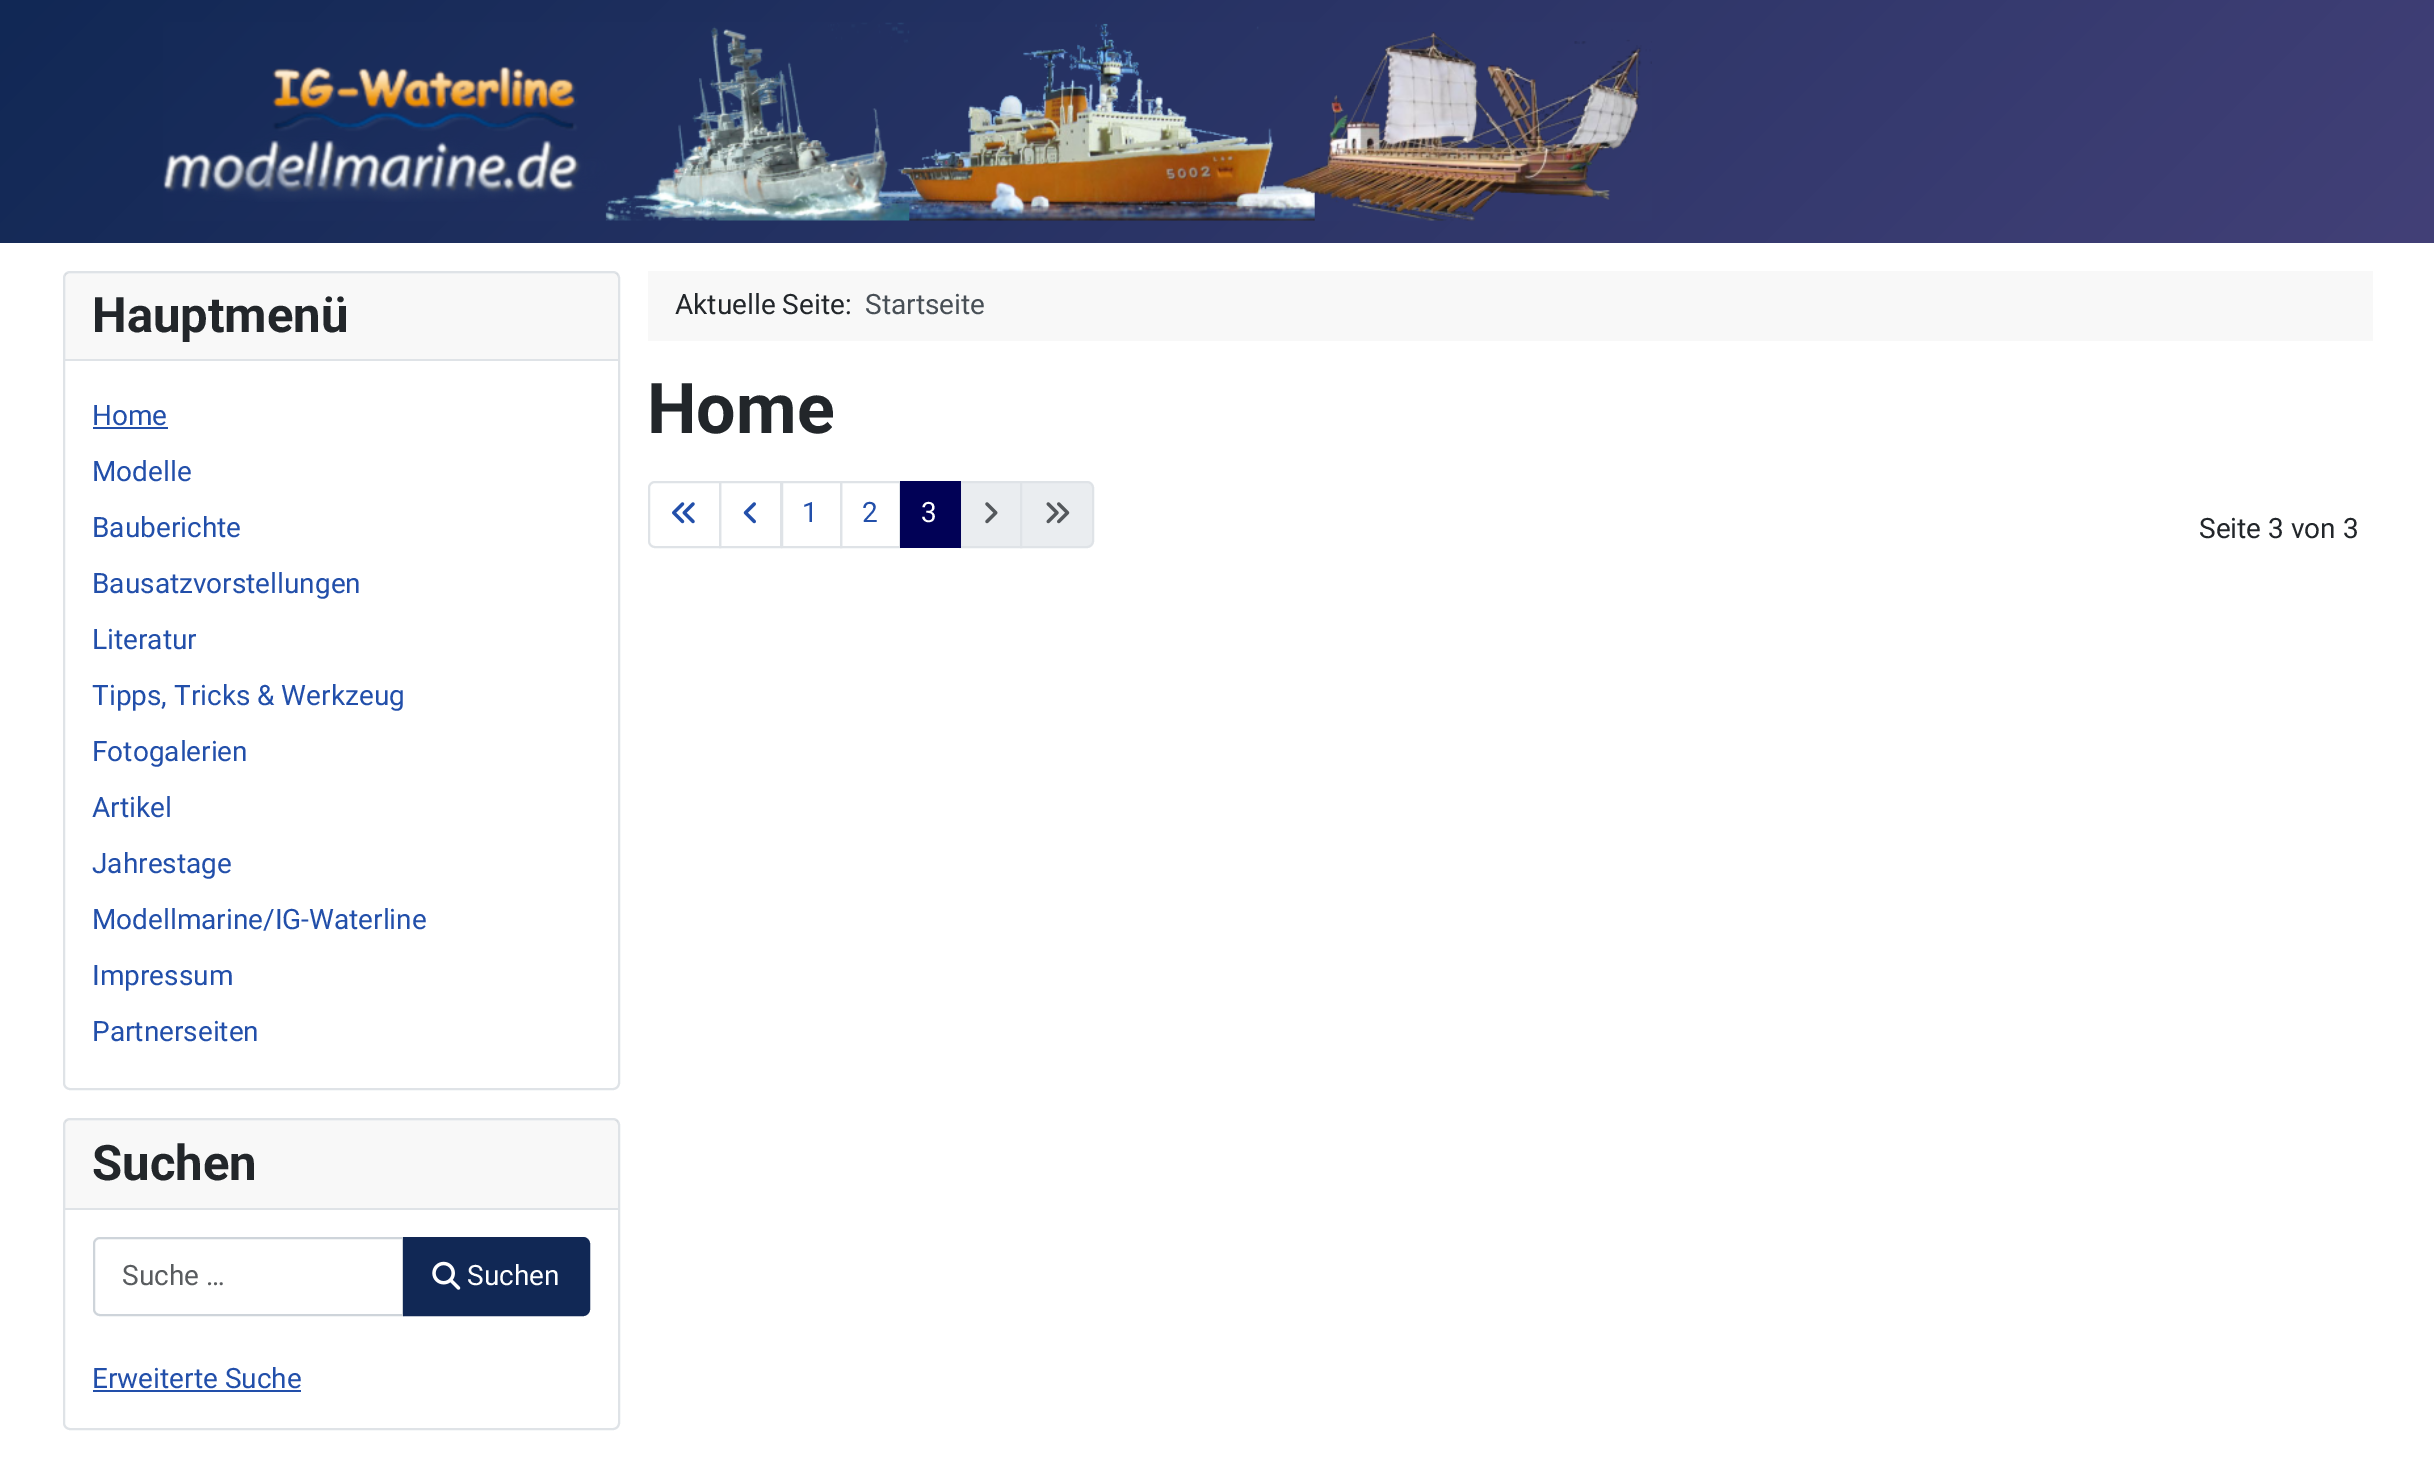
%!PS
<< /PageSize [2434 1477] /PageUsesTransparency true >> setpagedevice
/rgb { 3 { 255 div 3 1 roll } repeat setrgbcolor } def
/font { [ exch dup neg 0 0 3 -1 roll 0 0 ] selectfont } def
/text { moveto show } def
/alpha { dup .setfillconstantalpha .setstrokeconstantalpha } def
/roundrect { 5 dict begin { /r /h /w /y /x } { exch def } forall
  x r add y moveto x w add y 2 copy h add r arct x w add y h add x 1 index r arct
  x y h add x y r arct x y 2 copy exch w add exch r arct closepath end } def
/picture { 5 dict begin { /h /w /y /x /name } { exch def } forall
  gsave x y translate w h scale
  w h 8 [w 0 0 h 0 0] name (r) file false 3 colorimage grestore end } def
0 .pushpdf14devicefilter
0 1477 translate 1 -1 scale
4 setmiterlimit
255 255 255 rgb
0 0 2434 1477 rectfill
gsave 0 0 moveto 2434 0 rlineto 0 243 rlineto -2434 0 rlineto closepath clip newpath
<< /ShadingType 2 /ColorSpace /DeviceRGB /Coords [548 -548 1887 791] /Extend [true true] /Function << /FunctionType 2 /Domain [0 1] /C0 [0.067 0.157 0.333] /C1 [0.259 0.251 0.467] /N 1 >> >> shfill grestore
(img_01.rgb) 163 22 1489 199 picture
223 227 231 rgb
2 setlinewidth
64 272 555 817 6 roundrect stroke
0.03 alpha
34 38 42 rgb
65 273 553 86 rectfill
1 alpha
223 227 231 rgb
65 359 553 2 rectfill
34 79 170 rgb
93 427 75 2 rectfill
223 227 231 rgb
64 1119 555 310 6 roundrect stroke
0.03 alpha
34 38 42 rgb
65 1120 553 88 rectfill
1 alpha
223 227 231 rgb
65 1208 553 2 rectfill
206 212 218 rgb
100 1238 moveto 303 0 rlineto 0 77 rlineto -303 0 rlineto -3.5 0 -6 -2.5 -6 -6 rcurveto 0 -65 rlineto 0 -3.5 2.5 -6 6 -6 rcurveto closepath stroke
17 40 85 rgb
404 1238 moveto 179 0 rlineto 3.5 0 6 2.5 6 6 rcurveto 0 65 rlineto 0 3.5 -2.5 6 -6 6 rcurveto -179 0 rlineto closepath gsave fill grestore
stroke
(img_02.rgb) 432 1261 29 29 picture
34 79 170 rgb
93 1390 208 2 rectfill
248 248 248 rgb
648 271 1725 70 rectfill
223 227 231 rgb
655 482 moveto 65 0 rlineto 0 65 rlineto -65 0 rlineto -3.5 0 -6 -2.5 -6 -6 rcurveto 0 -53 rlineto 0 -3.5 2.5 -6 6 -6 rcurveto closepath stroke
(img_03.rgb) 672 502 23 22 picture
720 482 61 65 rectstroke
(img_04.rgb) 743 502 13 22 picture
782 482 59 65 rectstroke
841 482 59 65 rectstroke
234 237 240 rgb
960 482 moveto 61 0 rlineto 0 65 rlineto -61 0 rlineto closepath gsave fill grestore
223 227 231 rgb
stroke
1 1 86 rgb
900 481 61 67 rectfill
(img_05.rgb) 985 502 13 22 picture
234 237 240 rgb
1021 482 moveto 66 0 rlineto 3.5 0 6 2.5 6 6 rcurveto 0 53 rlineto 0 3.5 -2.5 6 -6 6 rcurveto -66 0 rlineto closepath gsave fill grestore
223 227 231 rgb
stroke
(img_06.rgb) 1046 502 24 22 picture
/Roboto-Bold 49 font
34 38 42 rgb
(Hauptmenü) 92 332 text
/Roboto-Regular 28 font
34 79 170 rgb
(Home) 92 425 text
(Modelle) 92 481 text
(Bauberichte) 92 537 text
(Bausatzvorstellungen) 92 593 text
(Literatur) 92 649 text
(Tipps, Tricks & Werkzeug) 92 705 text
(Fotogalerien) 92 761 text
(Artikel) 92 817 text
(Jahrestage) 92 873 text
(Modellmarine/IG-Waterline) 92 929 text
(Impressum) 92 985 text
(Partnerseiten) 92 1041 text
/Roboto-Bold 49 font
34 38 42 rgb
(Suchen) 92 1180 text
/Roboto-Regular 28 font
89 92 95 rgb
(Suche …) 122 1285 text
255 255 255 rgb
(Suchen) 467 1285 text
34 79 170 rgb
(Erweiterte Suche) 92 1388 text
34 38 42 rgb
(Aktuelle Seite:) 675 314 text
72 79 86 rgb
(Startseite) 865 314 text
/Roboto-Bold 70 font
34 38 42 rgb
(Home) 647 433 text
/Roboto-Regular 28 font
34 79 170 rgb
(1) 802 522 text
(2) 862 522 text
255 255 255 rgb
(3) 921 522 text
34 38 42 rgb
(Seite 3 von 3) 2199 538 text
.poppdf14devicefilter showpage
